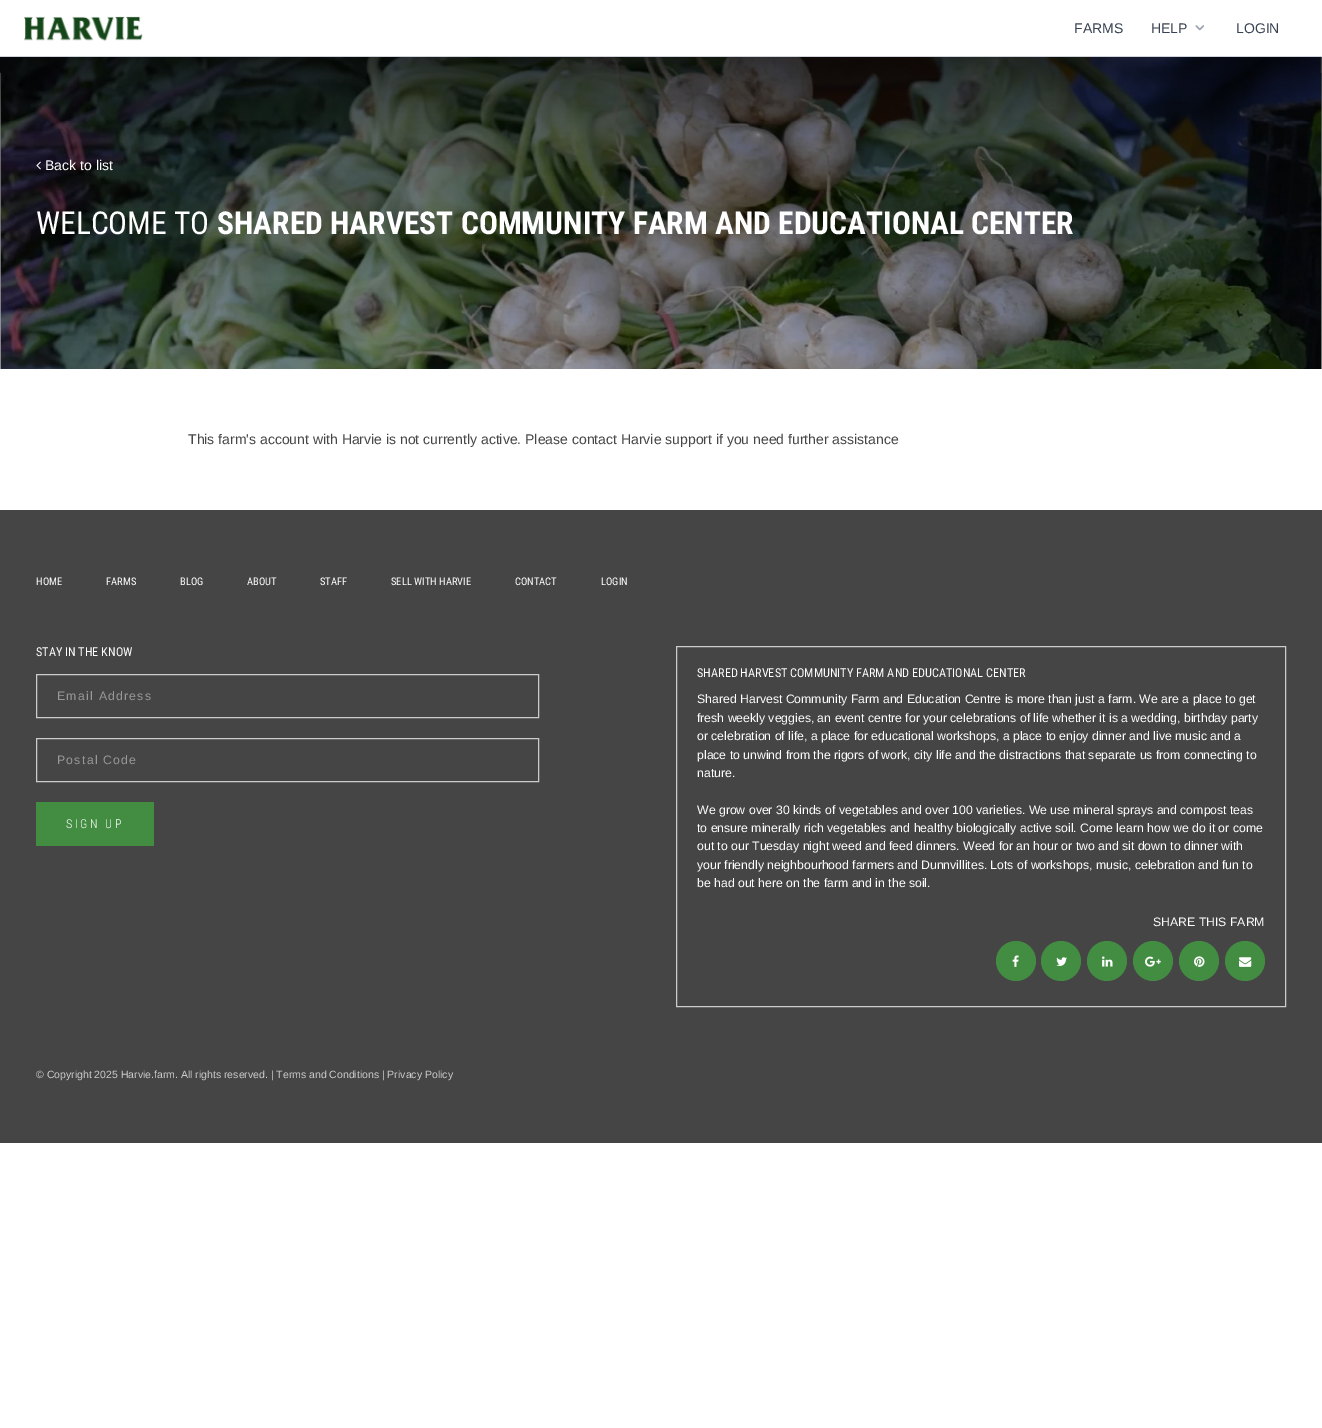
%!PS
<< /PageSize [1322 1428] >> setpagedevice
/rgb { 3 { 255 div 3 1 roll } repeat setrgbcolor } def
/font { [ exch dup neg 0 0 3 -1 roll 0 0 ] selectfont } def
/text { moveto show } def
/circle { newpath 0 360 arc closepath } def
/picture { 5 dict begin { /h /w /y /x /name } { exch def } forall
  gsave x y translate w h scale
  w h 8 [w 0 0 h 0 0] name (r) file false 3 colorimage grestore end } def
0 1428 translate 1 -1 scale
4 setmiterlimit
255 255 255 rgb
0 0 1322 1428 rectfill
209 213 219 rgb
0 56 1322 1 rectfill
(img_01.rgb) 24 16 119 25 picture
(img_02.rgb) 1195 25 9 6 picture
(img_03.rgb) 0 57 1322 312 picture
(img_04.rgb) 36 161 5 9 picture
69 69 69 rgb
0 510 1322 633 rectfill
204 204 204 rgb
36.5 674.5 502 43 rectstroke
36.5 738.5 502 43 rectstroke
67 141 66 rgb
36 802 118 44 rectfill
204 204 204 rgb
676.5 646.5 609 360 rectstroke
67 141 66 rgb
1016 961 20 circle fill
(img_05.rgb) 1012 955 7 12 picture
1061 961 20 circle fill
(img_06.rgb) 1056 957 11 9 picture
1107 961 20 circle fill
(img_07.rgb) 1102 956 11 11 picture
1153 961 20 circle fill
(img_08.rgb) 1145 956 16 11 picture
1199 961 20 circle fill
(img_09.rgb) 1194 956 11 11 picture
1245 961 20 circle fill
(img_10.rgb) 1239 957 13 10 picture
/LiberationSans-Regular 14 font
55 65 81 rgb
(FARMS) 1074 33 text
(HELP) 1151 33 text
(LOGIN) 1236 33 text
255 255 255 rgb
(Back to list) 45 170 text
/RobotoCondensed-Regular 31.5 font
(WELCOME TO) 36 234 text
/RobotoCondensed-Bold 31.5 font
(SHARED HARVEST COMMUNITY FARM AND EDUCATIONAL CENTER) 217 234 text
/LiberationSans-Regular 14 font
69 69 69 rgb
(This farm's account with Harvie is not currently active. Please contact Harvie support if you need further assistance) 188 444 text
/RobotoCondensed-Regular 10.5 font
255 255 255 rgb
(HOME) 36 585 text
(FARMS) 106 585 text
(BLOG) 180 585 text
(ABOUT) 247 585 text
(STAFF) 320 585 text
(SELL WITH HARVIE) 391 585 text
(CONTACT) 515 585 text
(LOGIN) 601 585 text
/RobotoCondensed-Regular 12.25 font
(STAY IN THE KNOW) 36 656 text
/LiberationSans-Regular 12.25 font
153 153 153 rgb
57 700 moveto 1.25 0 (Email Address) ashow
57 764 moveto 1.25 0 (Postal Code) ashow
/RobotoCondensed-Light 12.25 font
255 255 255 rgb
66 828 moveto 2.5 0 (SIGN UP) ashow
/RobotoCondensed-Regular 12.25 font
(SHARED HARVEST COMMUNITY FARM AND EDUCATIONAL CENTER) 697 677 text
/LiberationSans-Regular 12.25 font
(Shared Harvest Community Farm and Education Centre is more than just a farm. We are a place to get) 697 703 text
(fresh weekly veggies, an event centre for your celebrations of life whether it is a wedding, birthday party) 697 722 text
(or celebration of life, a place for educational workshops, a place to enjoy dinner and live music and a) 697 740 text
(place to unwind from the rigors of work, city life and the distractions that separate us from connecting to) 697 759 text
(nature.) 697 777 text
(We grow over 30 kinds of vegetables and over 100 varieties. We use mineral sprays and compost teas) 697 814 text
(to ensure minerally rich vegetables and healthy biologically active soil. Come learn how we do it or come) 697 832 text
(out to our Tuesday night weed and feed dinners. Weed for an hour or two and sit down to dinner with) 697 850 text
(your friendly neighbourhood farmers and Dunnvillites. Lots of workshops, music, celebration and fun to) 697 869 text
(be had out here on the farm and in the soil.) 697 887 text
(SHARE THIS FARM) 1153 926 text
/LiberationSans-Regular 10.5 font
204 204 204 rgb
(© Copyright 2025 Harvie.farm. All rights reserved. | Terms and Conditions | Privacy Policy) 36 1078 text
showpage
